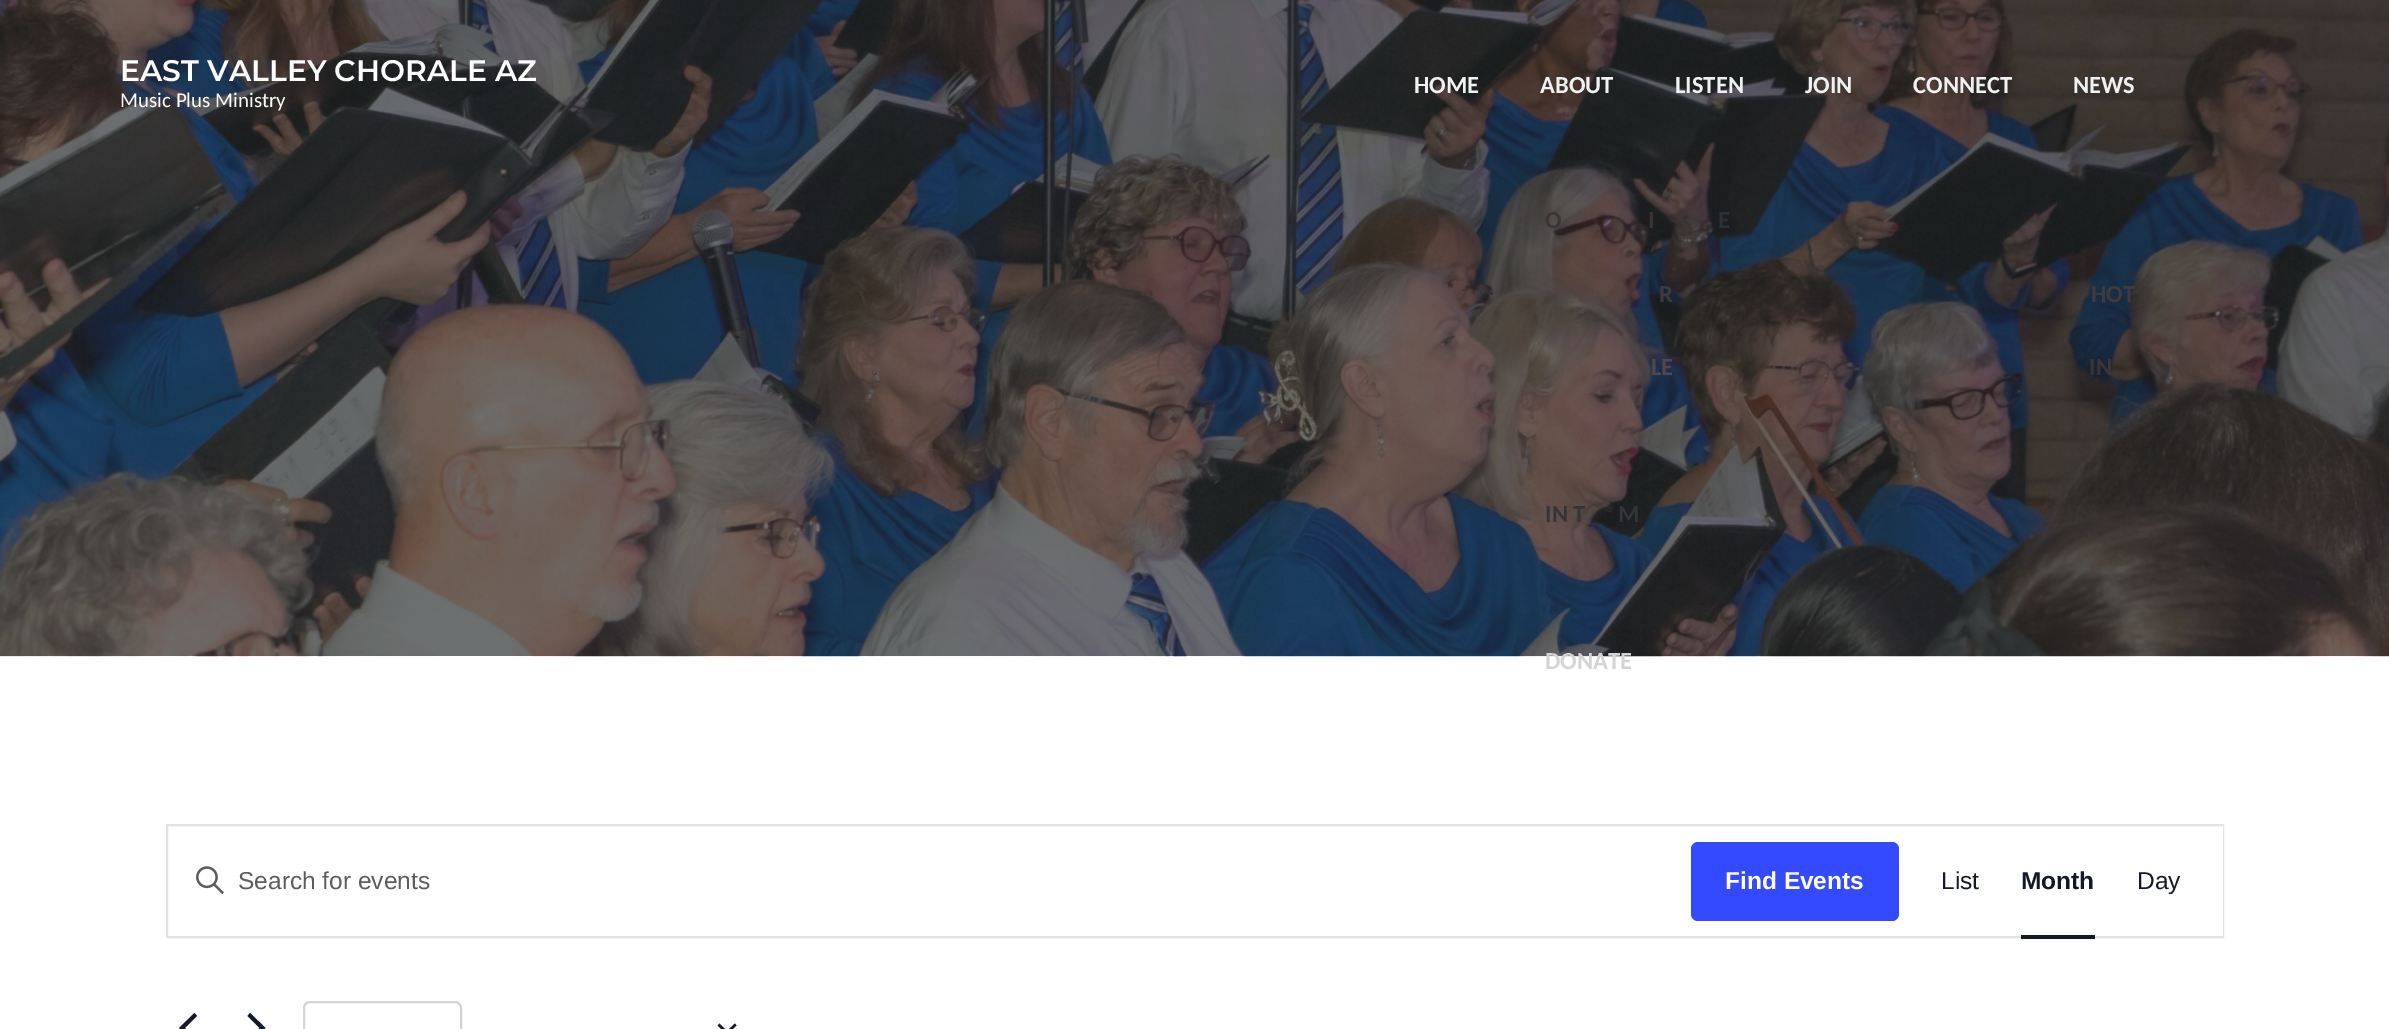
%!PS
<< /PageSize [2389 1029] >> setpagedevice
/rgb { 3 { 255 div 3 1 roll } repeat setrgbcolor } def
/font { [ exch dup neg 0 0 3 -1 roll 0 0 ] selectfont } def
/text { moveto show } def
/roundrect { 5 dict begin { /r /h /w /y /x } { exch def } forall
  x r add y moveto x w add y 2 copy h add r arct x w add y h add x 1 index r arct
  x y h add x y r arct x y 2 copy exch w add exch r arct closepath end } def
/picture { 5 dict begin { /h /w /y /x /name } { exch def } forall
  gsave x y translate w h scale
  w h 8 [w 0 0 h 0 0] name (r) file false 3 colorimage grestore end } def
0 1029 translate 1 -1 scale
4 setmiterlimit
255 255 255 rgb
0 0 2389 1029 rectfill
(img_01.rgb) 0 0 2389 657 picture
228 228 228 rgb
2 setlinewidth
167 825 2056 112 rectstroke
(img_02.rgb) 196 866 28 28 picture
51 74 255 rgb
1691 842 208 79 7 roundrect fill
255 255 255 rgb
2222 826 1 110 rectfill
20 24 39 rgb
2021 935 74 4 rectfill
197 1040.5 moveto -2.5 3 rlineto -15.5 -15.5 rlineto 15.5 -15 rlineto 2.5 3 rlineto -12 12 rlineto closepath fill
247.5 1016 moveto 2.5 -3 rlineto 15.5 15 rlineto -15.5 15.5 rlineto -2.5 -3 rlineto 12 -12.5 rlineto closepath fill
213 213 213 rgb
304 1002 157 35 6 roundrect stroke
20 24 39 rgb
719.5 1023.5 moveto 7.5 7.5 rlineto 8 -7.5 rlineto 1.5 2 rlineto -9.5 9.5 rlineto -9.5 -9.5 rlineto closepath eofill
/Montserrat-Thin 29.75 font
255 255 255 rgb
(EAST VALLEY CHORALE AZ) 120 81 text
/Carlito-Regular 21 font
(Music Plus Ministry) 120 107 text
/Carlito-Bold 24.5 font
240 241 242 rgb
(HOME) 1414 93 text
(ABOUT) 1540 93 text
61 52 53 rgb
(O) 1545 228 text
(I) 1648 228 text
64 57 61 rgb
(R) 1659 302 text
82 71 75 rgb
(LE) 1651 375 text
52 53 58 rgb
(IN T) 1545 522 text
(M) 1618 522 text
212 212 213 rgb
(DONATE) 1545 669 text
240 241 242 rgb
(LISTEN) 1675 93 text
44 48 57 rgb
(E) 1718 228 text
240 241 242 rgb
(JOIN) 1805 93 text
(CONNECT) 1913 93 text
(NEWS) 2073 93 text
64 57 61 rgb
(HOT) 2091 302 text
61 52 53 rgb
(IN) 2089 375 text
/LiberationSans-Regular 24.5 font
93 93 93 rgb
(Search for events) 238 889 text
/LiberationSans-Bold 24.5 font
255 255 255 rgb
(Find Events) 1725 889 text
/LiberationSans-Regular 24.5 font
20 24 39 rgb
(List) 1941 889 text
/LiberationSans-Bold 24.5 font
(Month) 2021 889 text
/LiberationSans-Regular 24.5 font
(Day) 2137 889 text
showpage
